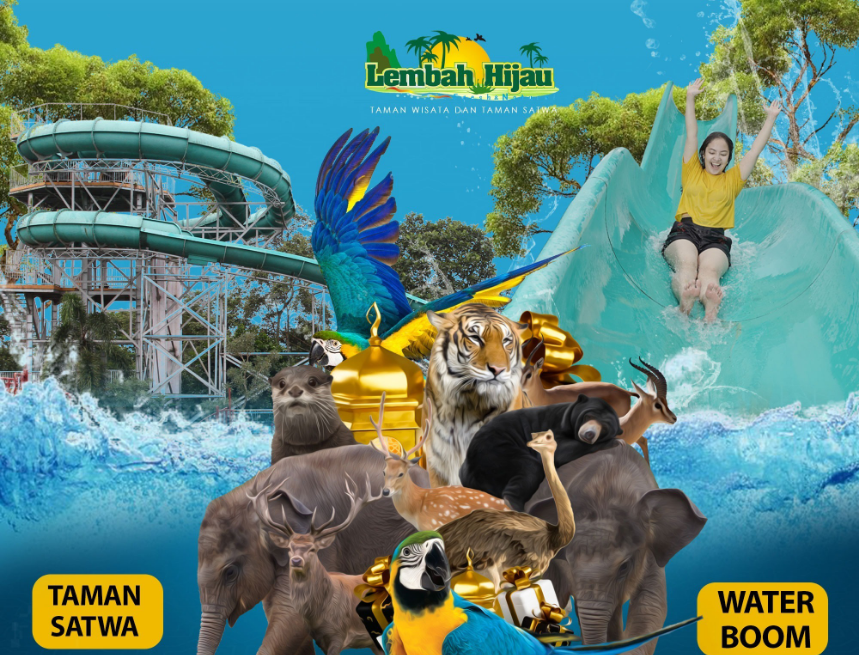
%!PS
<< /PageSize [859 655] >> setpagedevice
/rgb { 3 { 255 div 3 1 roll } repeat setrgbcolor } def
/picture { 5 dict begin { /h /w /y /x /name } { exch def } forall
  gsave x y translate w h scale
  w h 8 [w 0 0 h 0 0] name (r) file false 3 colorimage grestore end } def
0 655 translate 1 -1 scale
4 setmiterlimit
255 255 255 rgb
0 0 859 655 rectfill
(img_01.rgb) 0 0 859 655 picture
showpage
